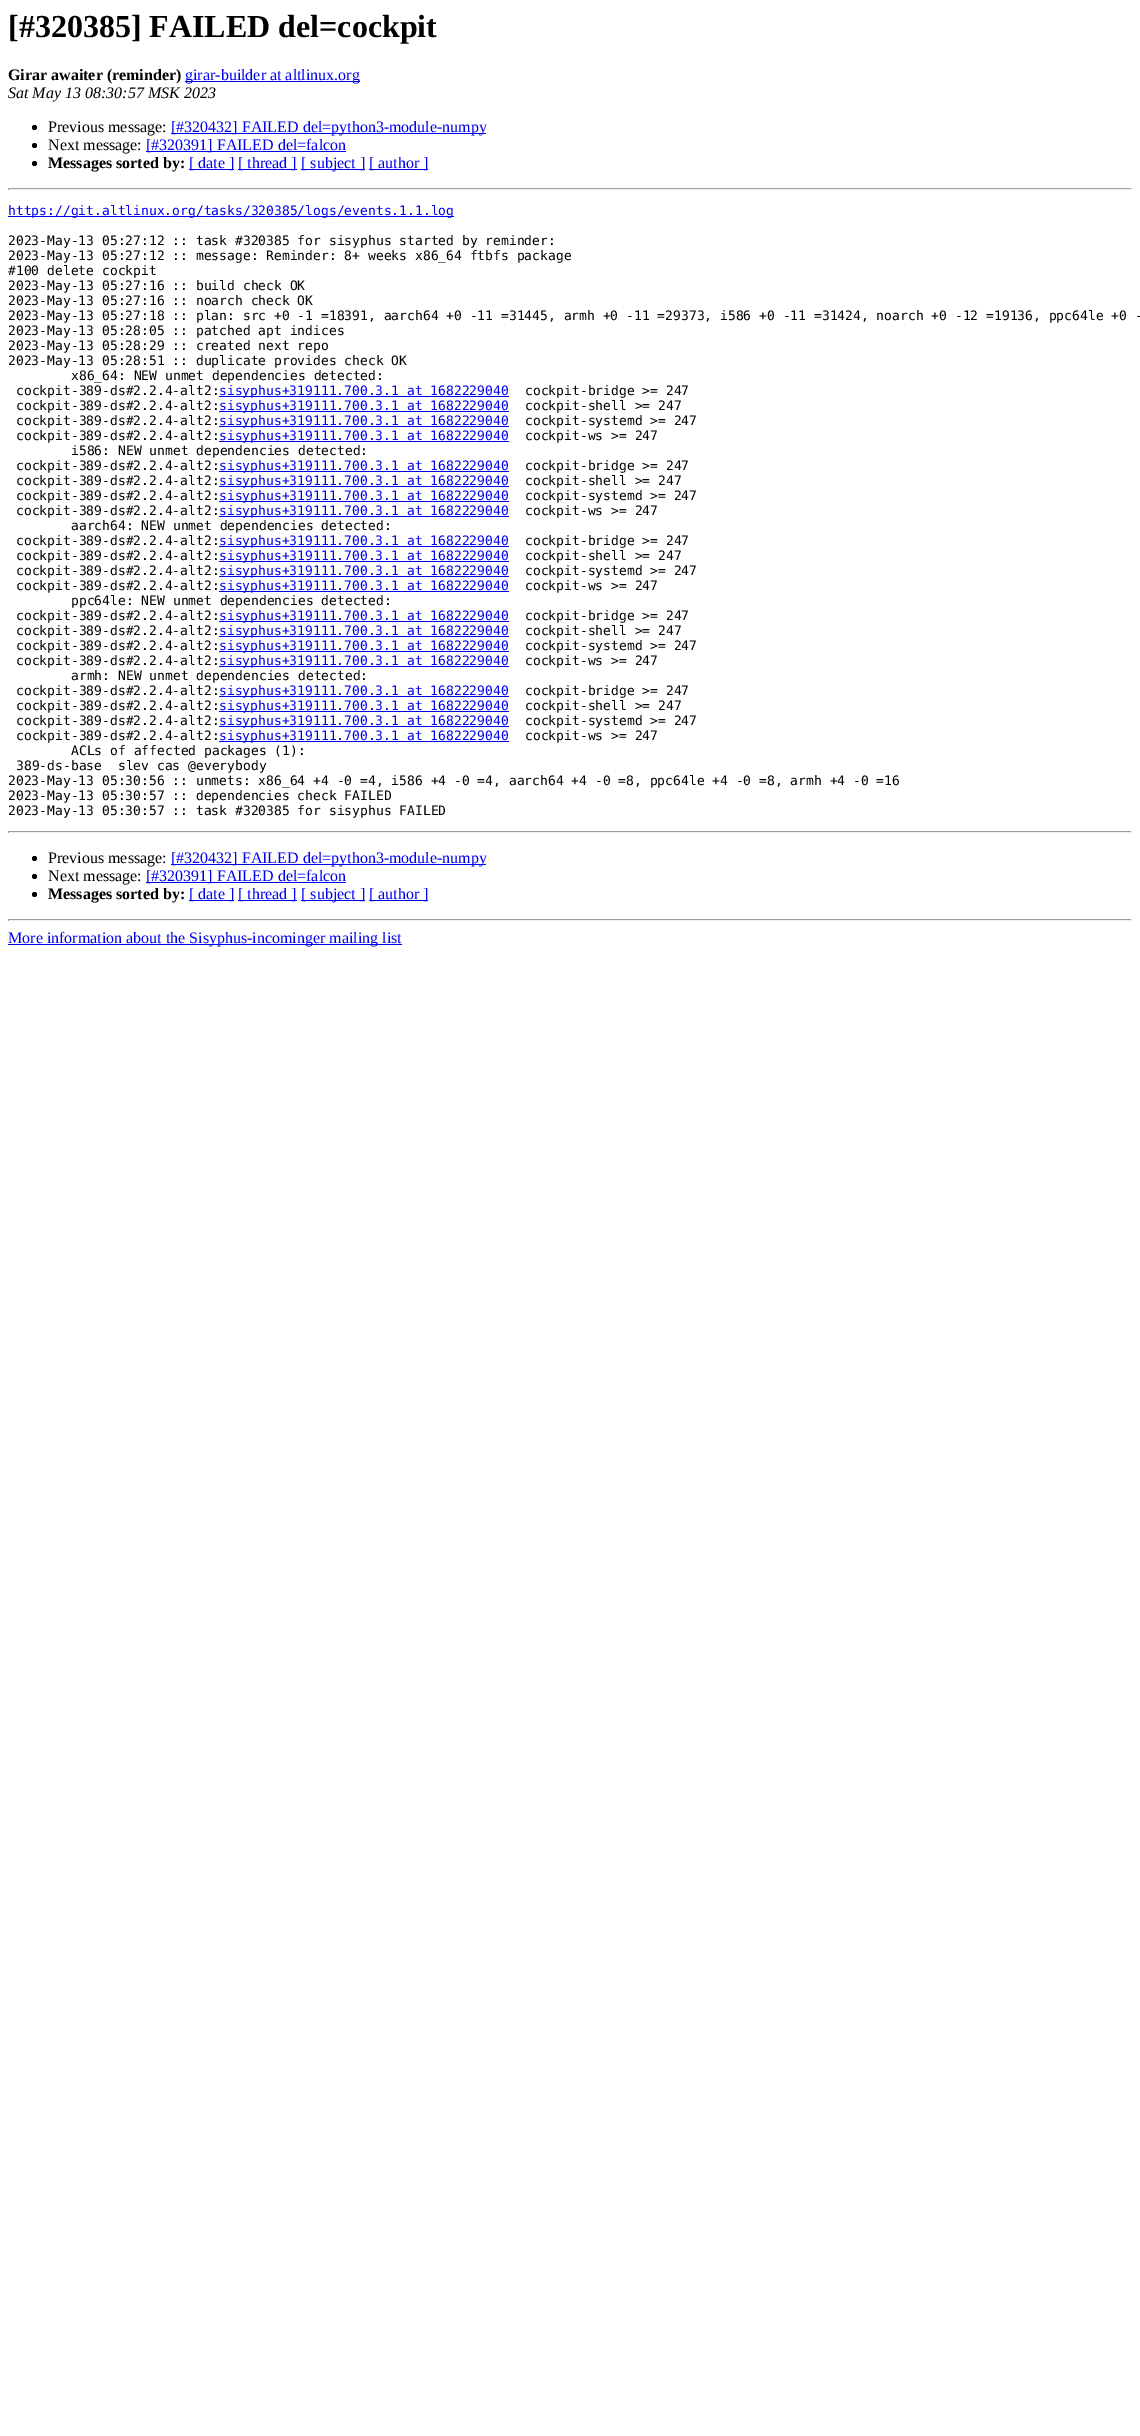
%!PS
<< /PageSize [1140 2436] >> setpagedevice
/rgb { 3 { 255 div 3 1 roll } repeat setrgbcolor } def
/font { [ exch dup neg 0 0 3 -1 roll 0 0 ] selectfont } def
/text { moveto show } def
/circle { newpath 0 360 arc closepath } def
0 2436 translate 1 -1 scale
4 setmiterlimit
255 255 255 rgb
0 0 1140 2436 rectfill
0 0 238 rgb
185 81 175 1 rectfill
0 0 0 rgb
34.5 127.5 2.5 circle fill
0 0 238 rgb
171 133 315 1 rectfill
0 0 0 rgb
34.5 145.5 2.5 circle fill
0 0 238 rgb
146 151 200 1 rectfill
0 0 0 rgb
34.5 163.5 2.5 circle fill
0 0 238 rgb
189 169 45 1 rectfill
238 169 59 1 rectfill
301 169 64 1 rectfill
369 169 59 1 rectfill
159 159 159 rgb
8 188 1124 1 rectfill
238 238 238 rgb
1131 188 1 2 rectfill
8 189 1124 1 rectfill
159 159 159 rgb
8 188 1 2 rectfill
0 0 238 rgb
8 216 446 1 rectfill
219 396 290 1 rectfill
219 411 290 1 rectfill
219 426 290 1 rectfill
219 441 290 1 rectfill
219 471 290 1 rectfill
219 486 290 1 rectfill
219 501 290 1 rectfill
219 516 290 1 rectfill
219 546 290 1 rectfill
219 561 290 1 rectfill
219 576 290 1 rectfill
219 591 290 1 rectfill
219 621 290 1 rectfill
219 636 290 1 rectfill
219 651 290 1 rectfill
219 666 290 1 rectfill
219 696 290 1 rectfill
219 711 290 1 rectfill
219 726 290 1 rectfill
219 741 290 1 rectfill
159 159 159 rgb
8 831 1124 1 rectfill
238 238 238 rgb
1131 831 1 2 rectfill
8 832 1124 1 rectfill
159 159 159 rgb
8 831 1 2 rectfill
0 0 0 rgb
34.5 858.5 2.5 circle fill
0 0 238 rgb
171 864 315 1 rectfill
0 0 0 rgb
34.5 876.5 2.5 circle fill
0 0 238 rgb
146 882 200 1 rectfill
0 0 0 rgb
34.5 894.5 2.5 circle fill
0 0 238 rgb
189 900 45 1 rectfill
238 900 59 1 rectfill
301 900 64 1 rectfill
369 900 59 1 rectfill
159 159 159 rgb
8 919 1124 1 rectfill
238 238 238 rgb
1131 919 1 2 rectfill
8 920 1124 1 rectfill
159 159 159 rgb
8 919 1 2 rectfill
0 0 238 rgb
8 944 394 1 rectfill
/LiberationSerif-Bold 32 font
0 0 0 rgb
([#320385] FAILED del=cockpit) 8 37 text
/LiberationSerif-Bold 16 font
(Girar awaiter \(reminder\)) 8 80 text
/LiberationSerif-Regular 16 font
0 0 238 rgb
(girar-builder at altlinux.org) 185 80 text
/LiberationSerif-Italic 16 font
0 0 0 rgb
(Sat May 13 08:30:57 MSK 2023) 8 98 text
/LiberationSerif-Regular 16 font
(Previous message:) 48 132 text
0 0 238 rgb
([#320432] FAILED del=python3-module-numpy) 171 132 text
0 0 0 rgb
(Next message:) 48 150 text
0 0 238 rgb
([#320391] FAILED del=falcon) 146 150 text
/LiberationSerif-Bold 16 font
0 0 0 rgb
(Messages sorted by:) 48 168 text
/LiberationSerif-Regular 16 font
0 0 238 rgb
([ date ]) 189 168 text
([ thread ]) 238 168 text
([ subject ]) 301 168 text
([ author ]) 369 168 text
/DejaVuSansMono-Regular 13 font
(https://git.altlinux.org/tasks/320385/logs/events.1.1.log) 8 215 text
0 0 0 rgb
(2023-May-13 05:27:12 :: task #320385 for sisyphus started by reminder:) 8 245 text
(2023-May-13 05:27:12 :: message: Reminder: 8+ weeks x86_64 ftbfs package) 8 260 text
(#100 delete cockpit) 8 275 text
(2023-May-13 05:27:16 :: build check OK) 8 290 text
(2023-May-13 05:27:16 :: noarch check OK) 8 305 text
(2023-May-13 05:27:18 :: plan: src +0 -1 =18391, aarch64 +0 -11 =31445, armh +0 -11 =29373, i586 +0 -11 =31424, noarch +0 -12 =19136, ppc64le +0 -) 8 320 text
(2023-May-13 05:28:05 :: patched apt indices) 8 335 text
(2023-May-13 05:28:29 :: created next repo) 8 350 text
(2023-May-13 05:28:51 :: duplicate provides check OK) 8 365 text
(x86_64: NEW unmet dependencies detected:) 71 380 text
(cockpit-389-ds#2.2.4-alt2:) 16 395 text
0 0 238 rgb
(sisyphus+319111.700.3.1 at 1682229040) 219 395 text
0 0 0 rgb
(cockpit-bridge >= 247) 525 395 text
(cockpit-389-ds#2.2.4-alt2:) 16 410 text
0 0 238 rgb
(sisyphus+319111.700.3.1 at 1682229040) 219 410 text
0 0 0 rgb
(cockpit-shell >= 247) 525 410 text
(cockpit-389-ds#2.2.4-alt2:) 16 425 text
0 0 238 rgb
(sisyphus+319111.700.3.1 at 1682229040) 219 425 text
0 0 0 rgb
(cockpit-systemd >= 247) 525 425 text
(cockpit-389-ds#2.2.4-alt2:) 16 440 text
0 0 238 rgb
(sisyphus+319111.700.3.1 at 1682229040) 219 440 text
0 0 0 rgb
(cockpit-ws >= 247) 525 440 text
(i586: NEW unmet dependencies detected:) 71 455 text
(cockpit-389-ds#2.2.4-alt2:) 16 470 text
0 0 238 rgb
(sisyphus+319111.700.3.1 at 1682229040) 219 470 text
0 0 0 rgb
(cockpit-bridge >= 247) 525 470 text
(cockpit-389-ds#2.2.4-alt2:) 16 485 text
0 0 238 rgb
(sisyphus+319111.700.3.1 at 1682229040) 219 485 text
0 0 0 rgb
(cockpit-shell >= 247) 525 485 text
(cockpit-389-ds#2.2.4-alt2:) 16 500 text
0 0 238 rgb
(sisyphus+319111.700.3.1 at 1682229040) 219 500 text
0 0 0 rgb
(cockpit-systemd >= 247) 525 500 text
(cockpit-389-ds#2.2.4-alt2:) 16 515 text
0 0 238 rgb
(sisyphus+319111.700.3.1 at 1682229040) 219 515 text
0 0 0 rgb
(cockpit-ws >= 247) 525 515 text
(aarch64: NEW unmet dependencies detected:) 71 530 text
(cockpit-389-ds#2.2.4-alt2:) 16 545 text
0 0 238 rgb
(sisyphus+319111.700.3.1 at 1682229040) 219 545 text
0 0 0 rgb
(cockpit-bridge >= 247) 525 545 text
(cockpit-389-ds#2.2.4-alt2:) 16 560 text
0 0 238 rgb
(sisyphus+319111.700.3.1 at 1682229040) 219 560 text
0 0 0 rgb
(cockpit-shell >= 247) 525 560 text
(cockpit-389-ds#2.2.4-alt2:) 16 575 text
0 0 238 rgb
(sisyphus+319111.700.3.1 at 1682229040) 219 575 text
0 0 0 rgb
(cockpit-systemd >= 247) 525 575 text
(cockpit-389-ds#2.2.4-alt2:) 16 590 text
0 0 238 rgb
(sisyphus+319111.700.3.1 at 1682229040) 219 590 text
0 0 0 rgb
(cockpit-ws >= 247) 525 590 text
(ppc64le: NEW unmet dependencies detected:) 71 605 text
(cockpit-389-ds#2.2.4-alt2:) 16 620 text
0 0 238 rgb
(sisyphus+319111.700.3.1 at 1682229040) 219 620 text
0 0 0 rgb
(cockpit-bridge >= 247) 525 620 text
(cockpit-389-ds#2.2.4-alt2:) 16 635 text
0 0 238 rgb
(sisyphus+319111.700.3.1 at 1682229040) 219 635 text
0 0 0 rgb
(cockpit-shell >= 247) 525 635 text
(cockpit-389-ds#2.2.4-alt2:) 16 650 text
0 0 238 rgb
(sisyphus+319111.700.3.1 at 1682229040) 219 650 text
0 0 0 rgb
(cockpit-systemd >= 247) 525 650 text
(cockpit-389-ds#2.2.4-alt2:) 16 665 text
0 0 238 rgb
(sisyphus+319111.700.3.1 at 1682229040) 219 665 text
0 0 0 rgb
(cockpit-ws >= 247) 525 665 text
(armh: NEW unmet dependencies detected:) 71 680 text
(cockpit-389-ds#2.2.4-alt2:) 16 695 text
0 0 238 rgb
(sisyphus+319111.700.3.1 at 1682229040) 219 695 text
0 0 0 rgb
(cockpit-bridge >= 247) 525 695 text
(cockpit-389-ds#2.2.4-alt2:) 16 710 text
0 0 238 rgb
(sisyphus+319111.700.3.1 at 1682229040) 219 710 text
0 0 0 rgb
(cockpit-shell >= 247) 525 710 text
(cockpit-389-ds#2.2.4-alt2:) 16 725 text
0 0 238 rgb
(sisyphus+319111.700.3.1 at 1682229040) 219 725 text
0 0 0 rgb
(cockpit-systemd >= 247) 525 725 text
(cockpit-389-ds#2.2.4-alt2:) 16 740 text
0 0 238 rgb
(sisyphus+319111.700.3.1 at 1682229040) 219 740 text
0 0 0 rgb
(cockpit-ws >= 247) 525 740 text
(ACLs of affected packages \(1\):) 71 755 text
(389-ds-base  slev cas @everybody) 16 770 text
(2023-May-13 05:30:56 :: unmets: x86_64 +4 -0 =4, i586 +4 -0 =4, aarch64 +4 -0 =8, ppc64le +4 -0 =8, armh +4 -0 =16) 8 785 text
(2023-May-13 05:30:57 :: dependencies check FAILED) 8 800 text
(2023-May-13 05:30:57 :: task #320385 for sisyphus FAILED) 8 815 text
/LiberationSerif-Regular 16 font
(Previous message:) 48 863 text
0 0 238 rgb
([#320432] FAILED del=python3-module-numpy) 171 863 text
0 0 0 rgb
(Next message:) 48 881 text
0 0 238 rgb
([#320391] FAILED del=falcon) 146 881 text
/LiberationSerif-Bold 16 font
0 0 0 rgb
(Messages sorted by:) 48 899 text
/LiberationSerif-Regular 16 font
0 0 238 rgb
([ date ]) 189 899 text
([ thread ]) 238 899 text
([ subject ]) 301 899 text
([ author ]) 369 899 text
(More information about the Sisyphus-incominger mailing list) 8 943 text
showpage
